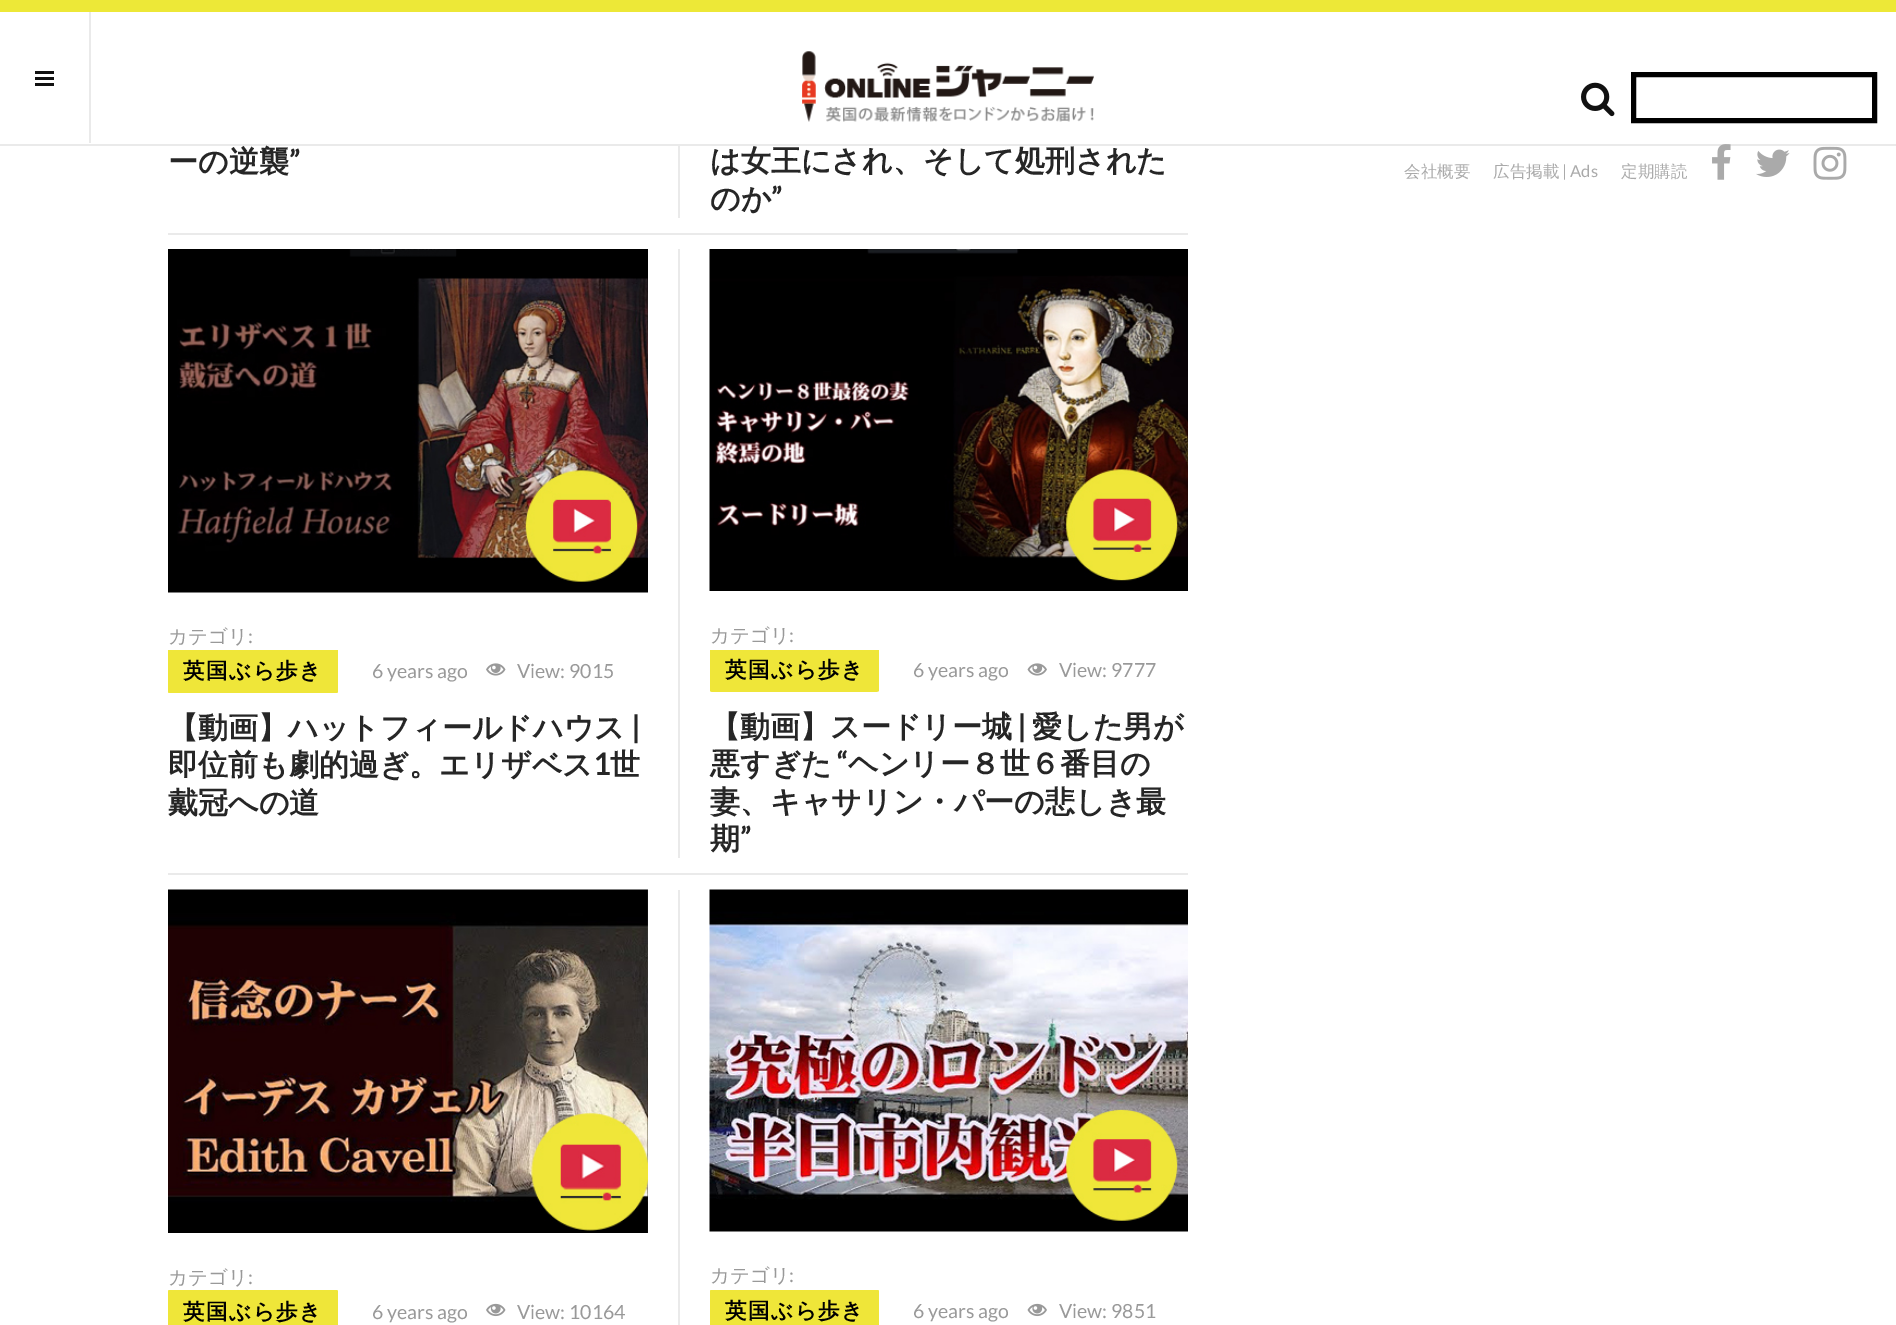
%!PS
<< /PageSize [1896 1325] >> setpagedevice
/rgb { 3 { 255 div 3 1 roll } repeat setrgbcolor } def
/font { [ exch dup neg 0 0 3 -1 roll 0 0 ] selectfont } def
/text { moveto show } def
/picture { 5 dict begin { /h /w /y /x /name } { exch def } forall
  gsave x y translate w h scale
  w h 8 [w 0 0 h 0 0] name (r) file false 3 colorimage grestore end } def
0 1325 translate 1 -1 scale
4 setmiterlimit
255 255 255 rgb
0 0 1896 1325 rectfill
234 234 234 rgb
168 233 1020 2 rectfill
678 146 2 72 rectfill
168 873 1020 2 rectfill
(img_01.rgb) 168 249 480 344 picture
239 230 57 rgb
171 650 moveto 163 0 rlineto 2 0 4 0 4 0 rcurveto 0 42 rlineto 0 1 -2 1 -4 1 rcurveto -163 0 rlineto -1 0 -3 0 -3 -1 rcurveto 0 -42 rlineto 0 0 2 0 3 0 rcurveto closepath fill
(img_02.rgb) 486 663 20 13 picture
234 234 234 rgb
678 249 2 609 rectfill
(img_03.rgb) 709 249 479 342 picture
239 230 57 rgb
713 650 moveto 163 0 rlineto 1 0 3 0 3 0 rcurveto 0 41 rlineto 0 0 -2 1 -3 1 rcurveto -163 0 rlineto -2 0 -3 -1 -3 -1 rcurveto 0 -41 rlineto 0 0 1 0 3 0 rcurveto closepath fill
(img_04.rgb) 1027 663 20 13 picture
(img_05.rgb) 168 889 480 344 picture
171 1290 moveto 163 0 rlineto 2 0 4 0 4 1 rcurveto 0 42 rlineto 0 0 -2 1 -4 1 rcurveto -163 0 rlineto -1 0 -3 -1 -3 -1 rcurveto 0 -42 rlineto 0 -1 2 -1 3 -1 rcurveto closepath fill
(img_06.rgb) 486 1303 20 14 picture
234 234 234 rgb
678 890 2 435 rectfill
(img_07.rgb) 709 889 479 343 picture
239 230 57 rgb
713 1290 moveto 163 0 rlineto 1 0 3 0 3 1 rcurveto 0 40 rlineto 0 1 -2 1 -3 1 rcurveto -163 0 rlineto -2 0 -3 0 -3 -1 rcurveto 0 -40 rlineto 0 -1 1 -1 3 -1 rcurveto closepath fill
(img_08.rgb) 1027 1303 20 14 picture
237 232 55 rgb
0 0 1896 12 rectfill
234 234 234 rgb
0 144 1896 2 rectfill
89 12 2 131 rectfill
17 17 17 rgb
35 77 19 3 rectfill
35 71 19 3 rectfill
35 83 19 3 rectfill
(img_09.rgb) 802 51 292 71 picture
(img_10.rgb) 1581 82 34 35 picture
0 0 0 rgb
5 setlinewidth
1633.5 74.5 241 46 rectstroke
(img_11.rgb) 1712 144 19 36 picture
(img_12.rgb) 1756 149 34 28 picture
(img_13.rgb) 1813 146 34 34 picture
/WenQuanYiZenHei-Bold 30 font
38 38 38 rgb
(ーの逆襲) 168 172 text
/Lato-Bold 30 font
(”) 289 172 text
/WenQuanYiZenHei-Bold 30 font
(は女王にされ、そして処刑された) 710 171 text
(のか) 710 209 text
/Lato-Bold 30 font
(”) 771 209 text
/WenQuanYiZenHei-Medium 19.5 font
153 153 153 rgb
(カテゴリ) 168 643 text
/Lato-Regular 19.5 font
(:) 248 643 text
/WenQuanYiZenHei-Bold 21.5 font
0 0 0 rgb
183 678 moveto 1.5 0 (英国ぶら歩き) ashow
/Lato-Regular 19.5 font
153 153 153 rgb
(6 years ago) 372 678 text
(View: 9015) 517 678 text
/WenQuanYiZenHei-Bold 30 font
38 38 38 rgb
(【動画】ハットフィールドハウス) 168 738 text
/Lato-Bold 30 font
(|) 631 738 text
/WenQuanYiZenHei-Bold 30 font
(即位前も劇的過ぎ。エリザベス) 168 775 text
/Lato-Bold 30 font
(1) 593 775 text
/WenQuanYiZenHei-Bold 30 font
(世) 610 775 text
(戴冠への道) 168 813 text
/WenQuanYiZenHei-Medium 19.5 font
153 153 153 rgb
(カテゴリ) 710 642 text
/Lato-Regular 19.5 font
(:) 789 642 text
/WenQuanYiZenHei-Bold 21.5 font
0 0 0 rgb
725 677 moveto 1.5 0 (英国ぶら歩き) ashow
/Lato-Regular 19.5 font
153 153 153 rgb
(6 years ago) 913 677 text
(View: 9777) 1059 677 text
/WenQuanYiZenHei-Bold 30 font
38 38 38 rgb
(【動画】スードリー城) 710 737 text
/Lato-Bold 30 font
(|) 1017 737 text
/WenQuanYiZenHei-Bold 30 font
(愛した男が) 1032 737 text
(悪すぎた) 710 774 text
/Lato-Bold 30 font
(“) 837 774 text
/WenQuanYiZenHei-Bold 30 font
(ヘンリー８世６番目の) 848 774 text
(妻、キャサリン・パーの悲しき最) 710 812 text
(期) 710 849 text
/Lato-Bold 30 font
(”) 740 849 text
/WenQuanYiZenHei-Medium 19.5 font
153 153 153 rgb
(カテゴリ) 168 1284 text
/Lato-Regular 19.5 font
(:) 248 1284 text
/WenQuanYiZenHei-Bold 21.5 font
0 0 0 rgb
183 1319 moveto 1.5 0 (英国ぶら歩き) ashow
/Lato-Regular 19.5 font
153 153 153 rgb
(6 years ago) 372 1319 text
(View: 10164) 517 1319 text
/WenQuanYiZenHei-Medium 19.5 font
(カテゴリ) 710 1282 text
/Lato-Regular 19.5 font
(:) 789 1282 text
/WenQuanYiZenHei-Bold 21.5 font
0 0 0 rgb
725 1318 moveto 1.5 0 (英国ぶら歩き) ashow
/Lato-Regular 19.5 font
153 153 153 rgb
(6 years ago) 913 1318 text
(View: 9851) 1059 1318 text
/WenQuanYiZenHei-Medium 16.5 font
170 170 170 rgb
(会社概要) 1404 177 text
(広告掲載) 1493 177 text
/Lato-Regular 16.5 font
(| Ads) 1562 177 text
/WenQuanYiZenHei-Medium 16.5 font
(定期購読) 1621 177 text
showpage
